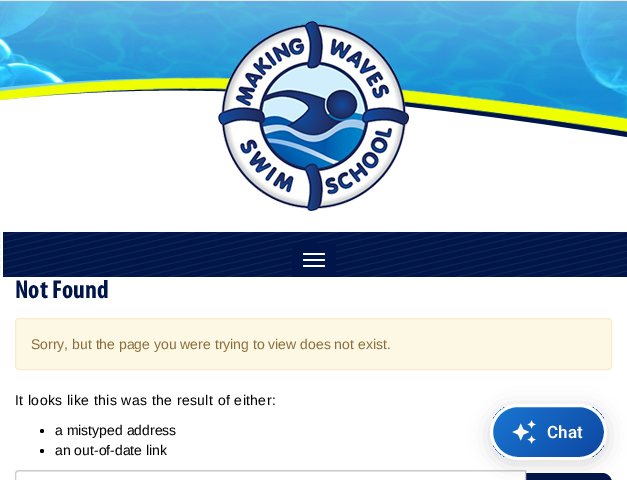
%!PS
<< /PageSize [627 480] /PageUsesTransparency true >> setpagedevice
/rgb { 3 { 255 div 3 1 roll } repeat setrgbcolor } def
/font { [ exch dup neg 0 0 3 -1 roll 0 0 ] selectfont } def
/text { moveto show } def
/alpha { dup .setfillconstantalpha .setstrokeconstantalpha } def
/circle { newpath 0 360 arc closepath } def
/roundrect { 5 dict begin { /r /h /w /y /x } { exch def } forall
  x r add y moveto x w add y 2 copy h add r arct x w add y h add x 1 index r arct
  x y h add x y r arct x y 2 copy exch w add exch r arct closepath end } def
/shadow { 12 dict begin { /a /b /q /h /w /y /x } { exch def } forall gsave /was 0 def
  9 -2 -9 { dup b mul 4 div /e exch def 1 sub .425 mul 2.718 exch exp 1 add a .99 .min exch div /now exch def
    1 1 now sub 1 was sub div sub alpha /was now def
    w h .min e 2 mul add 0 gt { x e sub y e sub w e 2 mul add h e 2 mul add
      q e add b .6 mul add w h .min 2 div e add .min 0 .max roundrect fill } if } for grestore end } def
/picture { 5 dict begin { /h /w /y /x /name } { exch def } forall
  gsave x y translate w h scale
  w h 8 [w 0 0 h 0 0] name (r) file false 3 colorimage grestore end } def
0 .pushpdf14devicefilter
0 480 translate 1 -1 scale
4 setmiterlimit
255 255 255 rgb
0 0 627 480 rectfill
(img_01.rgb) 0 1 627 137 picture
231 231 231 rgb
0 0 627 1 rectfill
(img_02.rgb) 218 21 191 190 picture
(img_03.rgb) 0 232 627 45 picture
0 22 74 rgb
292 243 44 34 rectfill
255 255 255 rgb
303 253 22 2 1 roundrect fill
303 259 22 2 1 roundrect fill
303 265 22 2 1 roundrect fill
252 248 227 rgb
15.5 318.5 596 51 3.5 roundrect gsave fill grestore
250 235 204 rgb
stroke
0 0 0 rgb
42 431 2 circle fill
42 451 2 circle fill
0 22 74 rgb
525 473 moveto 77 0 rlineto 5.5 0 10 4.5 10 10 rcurveto 0 -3 rlineto 0 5.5 -4.5 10 -10 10 rcurveto -77 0 rlineto closepath fill
255 255 255 rgb
19 470 moveto 507 0 rlineto 0 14 rlineto -507 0 rlineto -2 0 -4 -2 -4 -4 rcurveto 0 -6 rlineto 0 -2 2 -4 4 -4 rcurveto closepath fill
236 236 236 rgb
19 472 moveto 506 0 rlineto 0 -1 rlineto -506 0 rlineto -2 0 -3 2 -3 4 rcurveto 0 -2 1 -3 3 -3 rcurveto closepath fill
204 204 204 rgb
19 470.5 moveto 506.5 0 rlineto 0 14 rlineto -506.5 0 rlineto -2 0 -3.5 -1.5 -3.5 -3.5 rcurveto 0 -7 rlineto 0 -2 1.5 -3.5 3.5 -3.5 rcurveto closepath stroke
0 0 0 rgb
490 408 117 56 28 10 0.15 shadow
gsave
490 404 117 56 28 roundrect clip newpath
gsave 493 407 moveto 111 0 rlineto 0 50 rlineto -111 0 rlineto closepath clip newpath
<< /ShadingType 2 /ColorSpace /DeviceRGB /Coords [508 392 589 472] /Extend [true true] /Function << /FunctionType 2 /Domain [0 1] /C0 [0.098 0.463 0.824] /C1 [0.051 0.278 0.631] /N 1 >> >> shfill grestore
grestore
255 255 255 rgb
3 setlinewidth
491.5 405.5 114 53 26.5 roundrect stroke
(img_04.rgb) 512 420 24 24 picture
/Myriad-Bold 26 font
0 22 74 rgb
(Not Found) 15 298 text
/LiberationSans-Regular 14 font
138 109 59 rgb
(Sorry, but the page you were trying to view does not exist.) 31 349 text
0 0 0 rgb
15 405 moveto 0.4 0 (It looks like this was the result of either:) ashow
(a mistyped address) 55 435 text
(an out-of-date link) 55 455 text
/Roboto-SemiBold 17 font
255 255 255 rgb
(Chat) 547 438 text
.poppdf14devicefilter showpage
